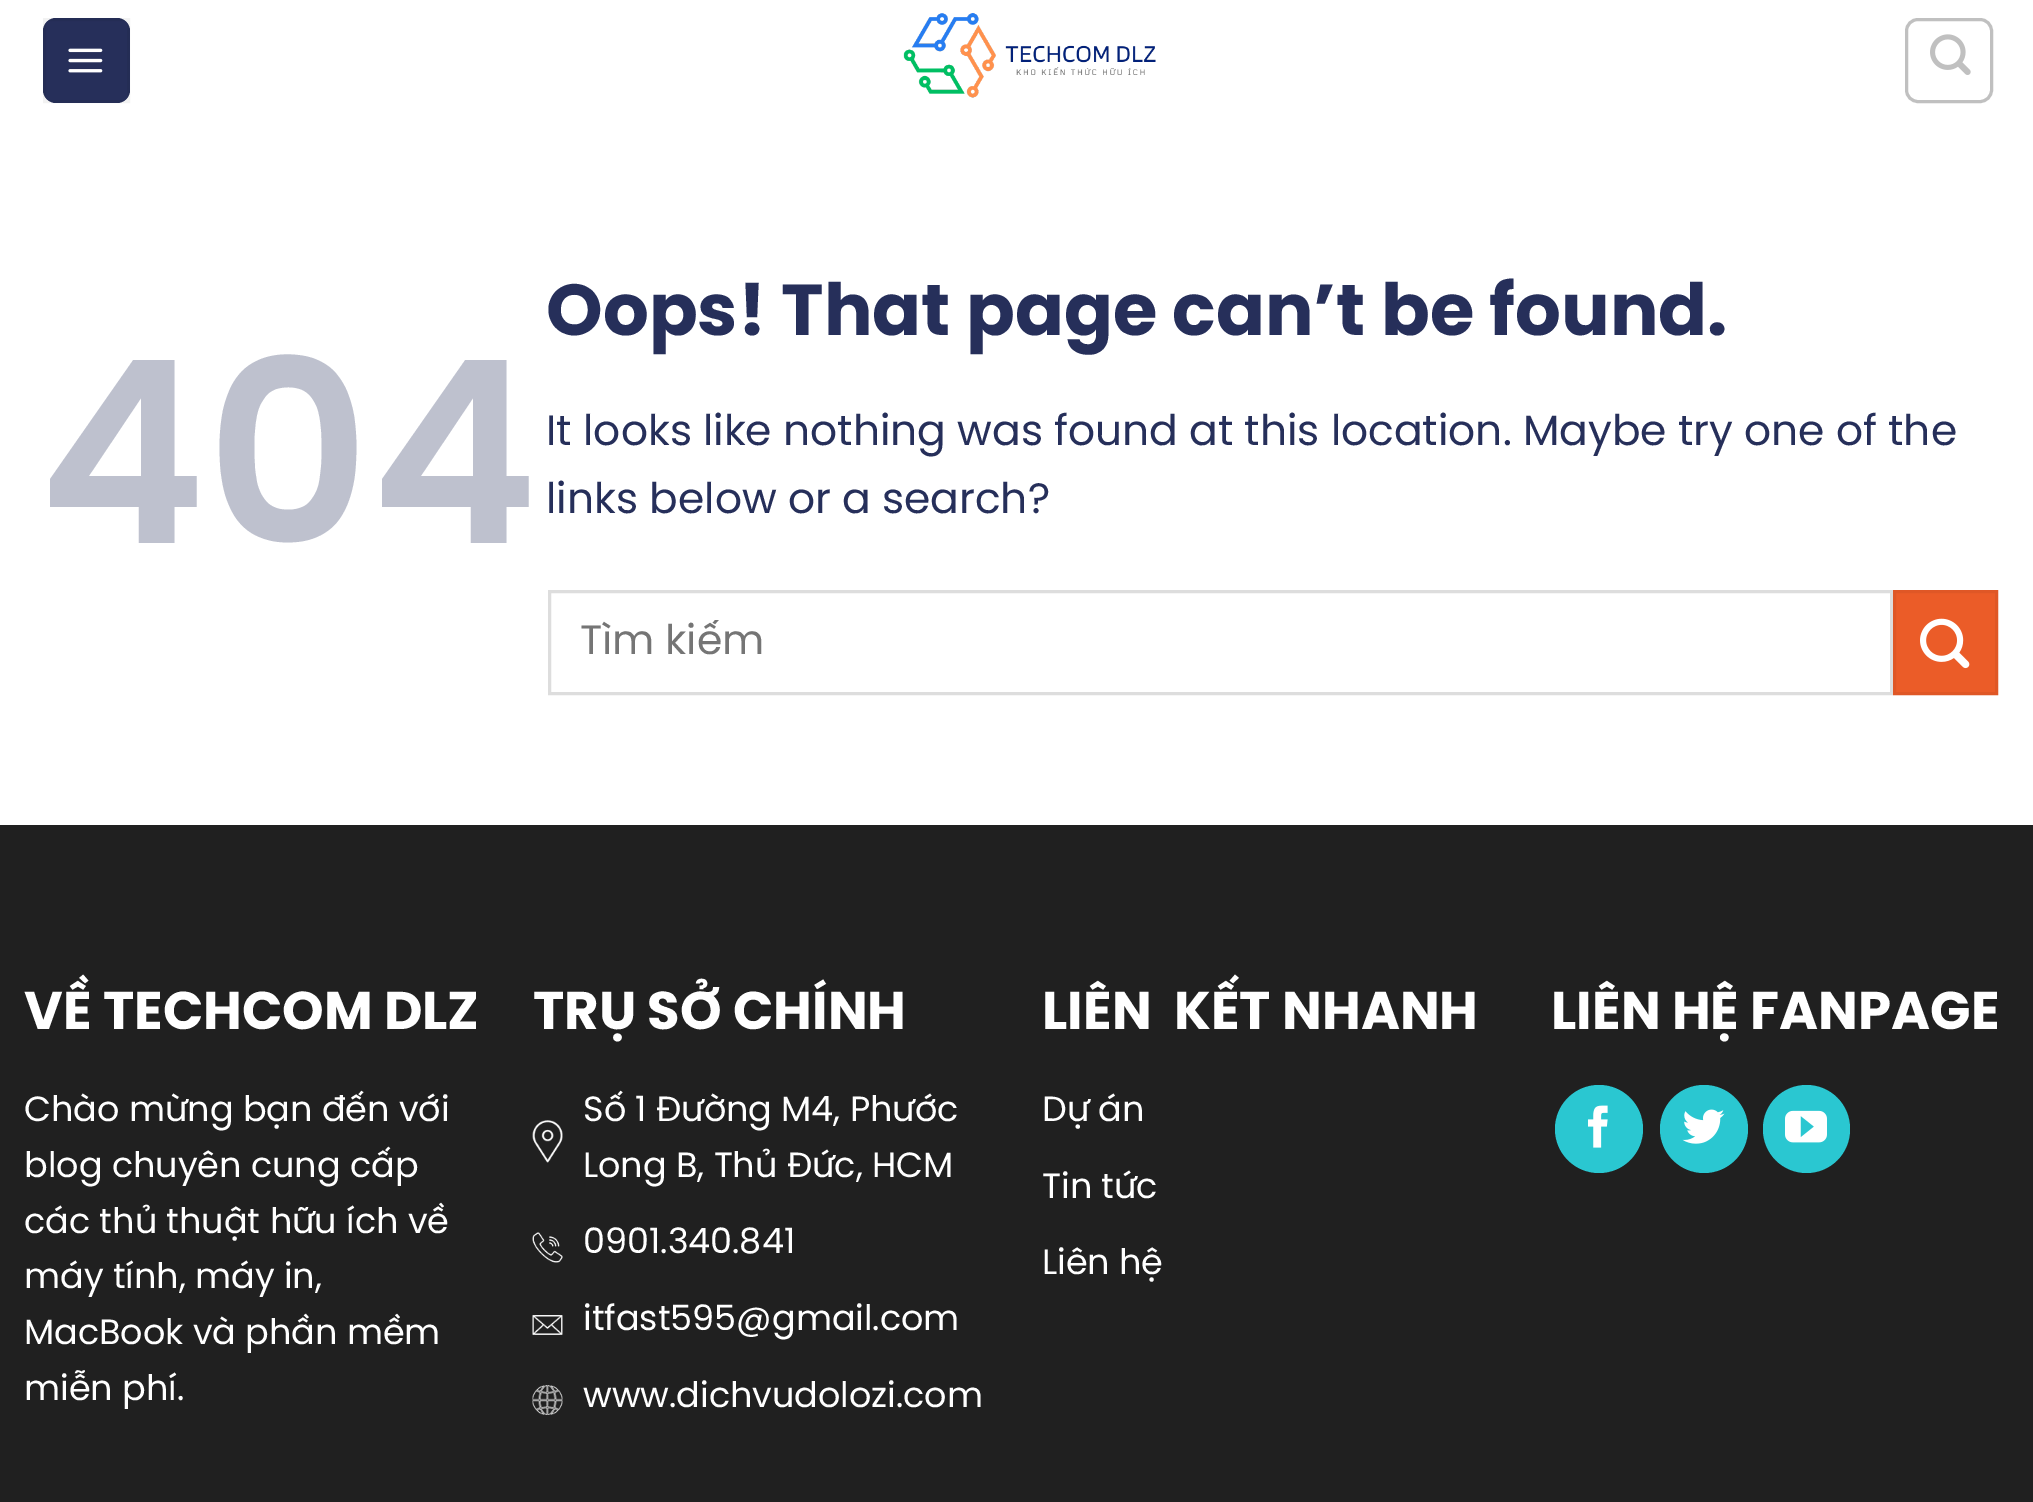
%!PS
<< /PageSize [2033 1502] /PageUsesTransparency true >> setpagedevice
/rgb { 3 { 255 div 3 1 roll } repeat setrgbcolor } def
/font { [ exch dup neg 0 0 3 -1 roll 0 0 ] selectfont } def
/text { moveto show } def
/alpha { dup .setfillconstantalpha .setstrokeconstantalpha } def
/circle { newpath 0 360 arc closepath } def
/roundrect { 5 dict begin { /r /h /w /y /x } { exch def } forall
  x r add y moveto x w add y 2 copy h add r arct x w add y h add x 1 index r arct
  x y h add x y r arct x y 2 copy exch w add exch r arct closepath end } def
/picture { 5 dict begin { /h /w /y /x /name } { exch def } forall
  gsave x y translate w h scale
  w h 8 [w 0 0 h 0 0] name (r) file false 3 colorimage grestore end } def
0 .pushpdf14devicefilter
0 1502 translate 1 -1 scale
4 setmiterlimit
255 255 255 rgb
0 0 2033 1502 rectfill
38 47 90 rgb
43 18 87 85 13 roundrect fill
0.05 alpha
0 0 0 rgb
3 setlinewidth
44.5 19.5 84 82 rectstroke
1 alpha
(img_01.rgb) 68 48 35 25 picture
(img_02.rgb) 903 13 253 85 picture
192 192 192 rgb
1906.5 19.5 85 82 11.5 roundrect stroke
(img_03.rgb) 1930 34 41 41 picture
221 221 221 rgb
549.5 591.5 1342 102 rectstroke
235 92 40 rgb
1894.5 591.5 moveto 102 0 rlineto 0 102 rlineto -102 0 rlineto closepath gsave fill grestore
223 87 38 rgb
stroke
(img_04.rgb) 1920 618 50 51 picture
32 32 32 rgb
0 825 2033 677 rectfill
(img_05.rgb) 532 1120 31 43 picture
(img_06.rgb) 532 1232 31 31 picture
(img_07.rgb) 532 1315 31 20 picture
(img_08.rgb) 532 1385 31 30 picture
42 199 209 rgb
1599 1129 44 circle fill
(img_09.rgb) 1588 1105 20 43 picture
1704 1129 44 circle fill
(img_10.rgb) 1682 1109 43 35 picture
1763 1085 87 88 43.5 roundrect fill
(img_11.rgb) 1785 1110 42 33 picture
/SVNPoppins-SemiBold 254 font
190 193 206 rgb
(404) 38 543 text
/SVNPoppins-Bold 72.1 font
38 47 90 rgb
(Oops! That page can’t be found.) 546 335 text
/SVNPoppins-Regular 42.4 font
546 445 moveto -0.1 0 32 (It looks like nothing was found at this location. Maybe try one of the) widthshow
(links below or a search?) 546 513 text
gsave
580 620 1270 43 rectclip
/SVNPoppins-Regular 41 font
117 117 117 rgb
(Tìm kiếm) 580 654 text
grestore
/SVNPoppins-Bold 53 font
255 255 255 rgb
(VỀ TECHCOM DLZ) 24 1029 text
/SVNPoppins-Regular 35 font
(Chào mừng bạn đến với) 24 1121 text
(blog chuyên cung cấp) 24 1177 text
(các thủ thuật hữu ích về) 24 1233 text
(máy tính, máy in,) 24 1288 text
(MacBook và phần mềm) 24 1344 text
(miễn phí.) 24 1400 text
/SVNPoppins-Bold 53 font
(TRỤ SỞ CHÍNH) 533 1029 text
/SVNPoppins-Regular 35 font
(Số 1 Đường M4, Phước) 583 1121 text
(Long B, Thủ Đức, HCM) 583 1177 text
(0901.340.841) 583 1253 text
(itfast595@gmail.com) 583 1330 text
(www.dichvudolozi.com) 583 1407 text
/SVNPoppins-Bold 53 font
(LIÊN  KẾT NHANH) 1042 1029 text
/SVNPoppins-Regular 35 font
(Dự án) 1042 1121 text
(Tin tức) 1042 1198 text
(Liên hệ) 1042 1274 text
/SVNPoppins-Bold 53 font
(LIÊN HỆ FANPAGE) 1551 1029 text
.poppdf14devicefilter showpage
